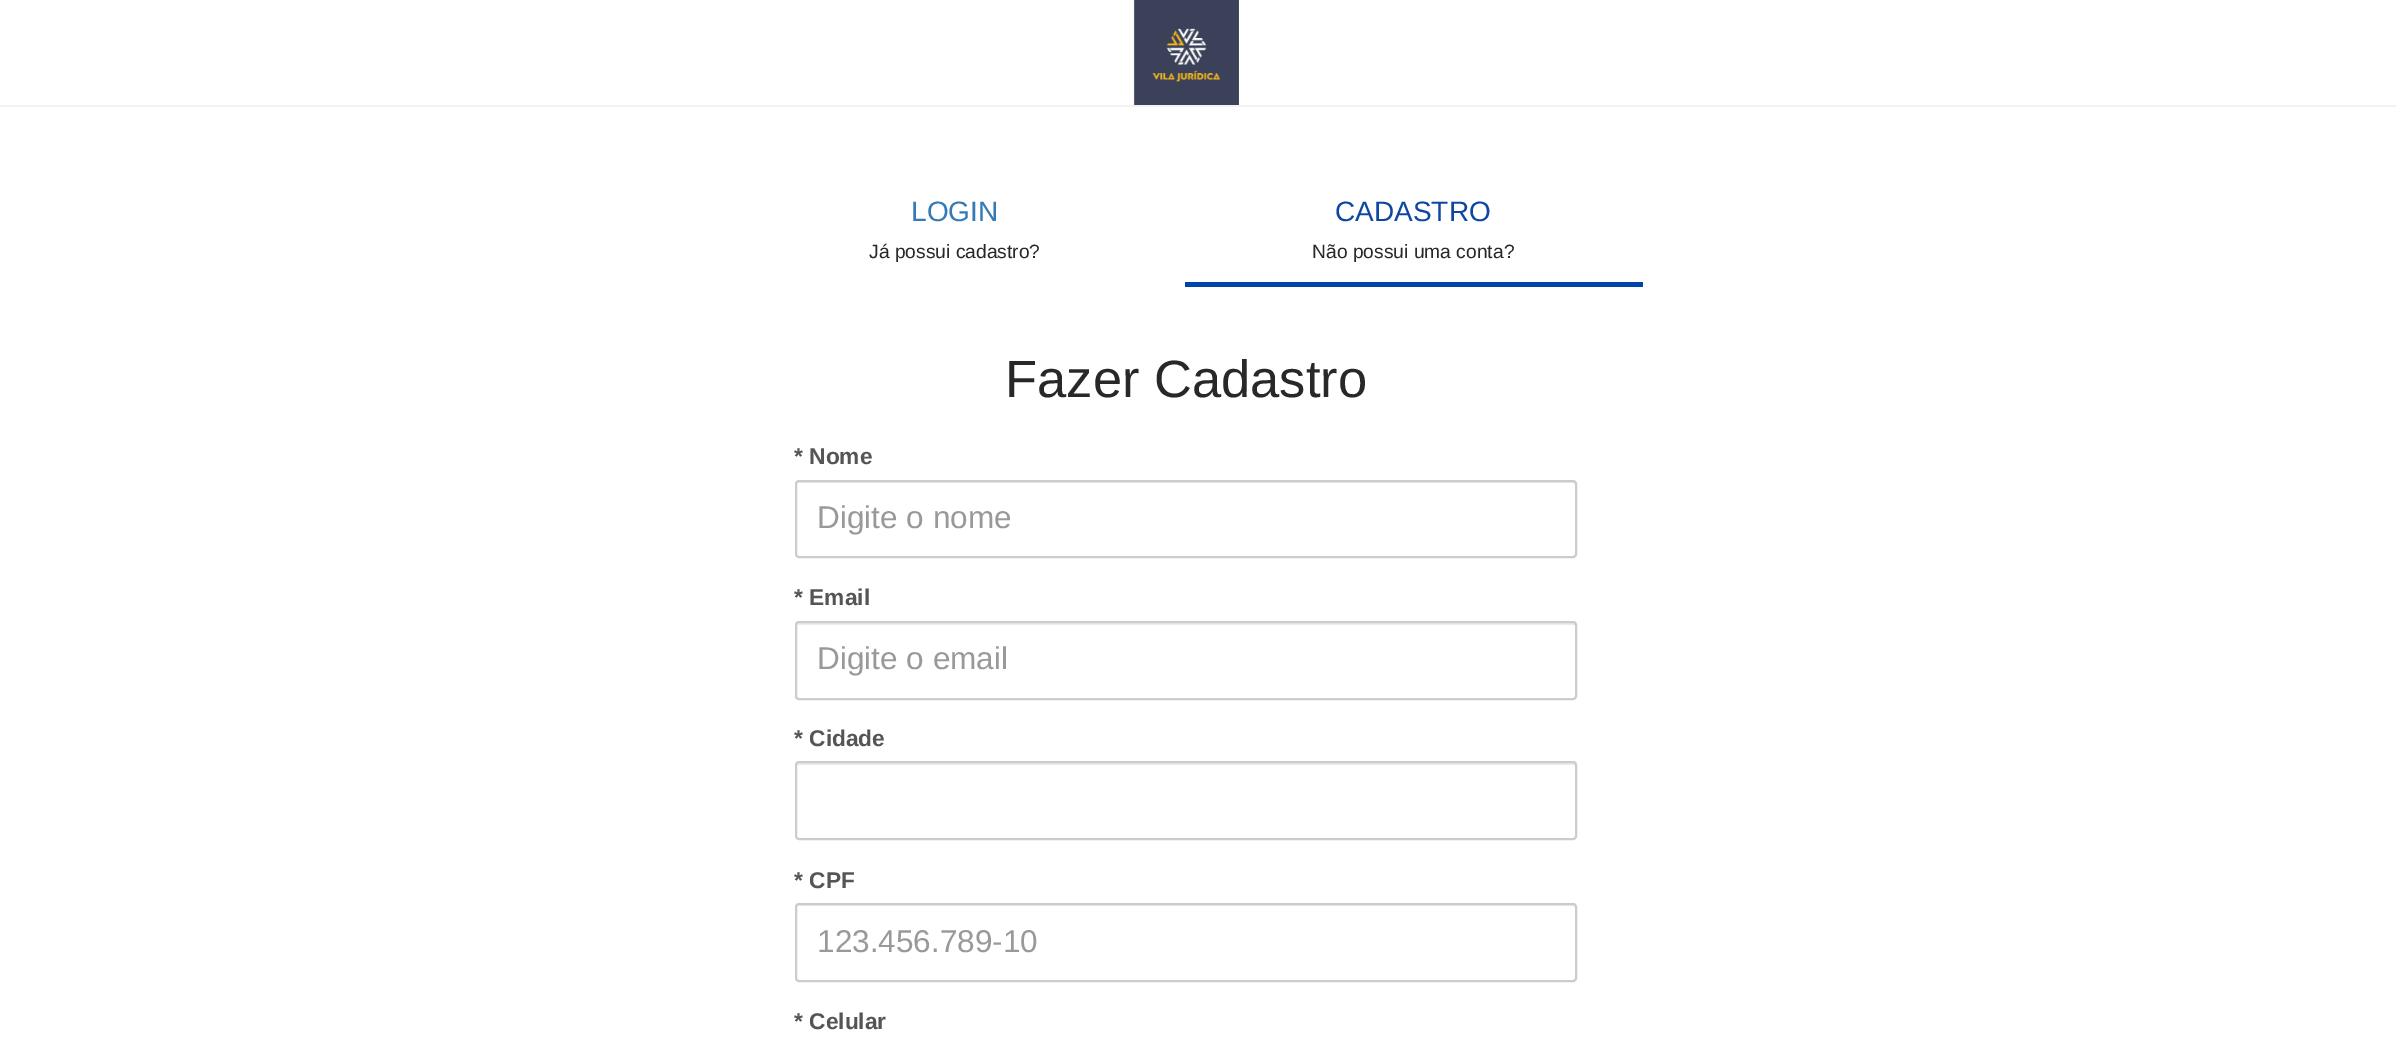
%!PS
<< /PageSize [2396 1042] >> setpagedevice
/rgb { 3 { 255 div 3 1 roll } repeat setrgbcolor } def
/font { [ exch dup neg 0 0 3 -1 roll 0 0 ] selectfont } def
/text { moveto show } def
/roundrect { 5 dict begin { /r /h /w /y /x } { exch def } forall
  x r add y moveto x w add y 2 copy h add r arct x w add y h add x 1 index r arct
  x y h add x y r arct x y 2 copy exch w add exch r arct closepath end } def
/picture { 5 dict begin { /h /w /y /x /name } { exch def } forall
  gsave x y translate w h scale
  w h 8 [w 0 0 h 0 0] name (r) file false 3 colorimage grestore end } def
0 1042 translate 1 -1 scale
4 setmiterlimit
255 255 255 rgb
0 0 2396 1042 rectfill
242 242 242 rgb
0 105 2396 2 rectfill
(img_01.rgb) 1133 0 106 105 picture
0 67 169 rgb
1185 282 458 5 rectfill
236 236 236 rgb
798 483 moveto 775 0 rlineto 1 0 2 1 2 2 rcurveto 0 -1 0 -3 -1 -3 rcurveto -1 -1 rlineto -775 0 rlineto -2 1 rlineto 0 3 rlineto 0 -1 1 -2 2 -2 rcurveto closepath fill
204 204 204 rgb
2 setlinewidth
796 481 780 76 3 roundrect stroke
236 236 236 rgb
798 625 moveto 775 0 rlineto 2 1 rlineto 0 -1 0 -3 -2 -3 rcurveto -775 0 rlineto -2 0 -2 2 -2 3 rcurveto closepath fill
204 204 204 rgb
796 622 780 77 3 roundrect stroke
236 236 236 rgb
798 765 moveto 775 0 rlineto 2 1 rlineto 0 -1 0 -3 -2 -3 rcurveto -775 0 rlineto -2 0 -2 2 -2 3 rcurveto closepath fill
204 204 204 rgb
796 762 780 77 3 roundrect stroke
236 236 236 rgb
798 906 moveto 775 0 rlineto 1 0 2 1 2 2 rcurveto 0 -1 0 -3 -2 -3 rcurveto -775 0 rlineto -2 0 -2 2 -2 3 rcurveto 0 -1 1 -2 2 -2 rcurveto closepath fill
204 204 204 rgb
796 904 780 77 3 roundrect stroke
/LiberationSans-Regular 28 font
51 122 183 rgb
(LOGIN) 911 221 text
/LiberationSans-Regular 19.25 font
40 40 40 rgb
(Já possui cadastro?) 869 258 text
/LiberationSans-Regular 28 font
13 71 161 rgb
(CADASTRO) 1335 221 text
/LiberationSans-Regular 19.25 font
40 40 40 rgb
(Não possui uma conta?) 1312 258 text
/LiberationSans-Regular 52.5 font
(Fazer Cadastro) 1005 397 text
/LiberationSans-Bold 22.75 font
85 85 85 rgb
(* Nome) 794 464 text
/LiberationSans-Regular 31.5 font
153 153 153 rgb
(Digite o nome) 817 528 text
/LiberationSans-Bold 22.75 font
85 85 85 rgb
(* Email) 794 605 text
/LiberationSans-Regular 31.5 font
153 153 153 rgb
(Digite o email) 817 669 text
/LiberationSans-Bold 22.75 font
85 85 85 rgb
(* Cidade) 794 746 text
(* CPF) 794 888 text
/LiberationSans-Regular 31.5 font
153 153 153 rgb
(123.456.789-10) 817 952 text
/LiberationSans-Bold 22.75 font
85 85 85 rgb
(* Celular) 794 1029 text
showpage
